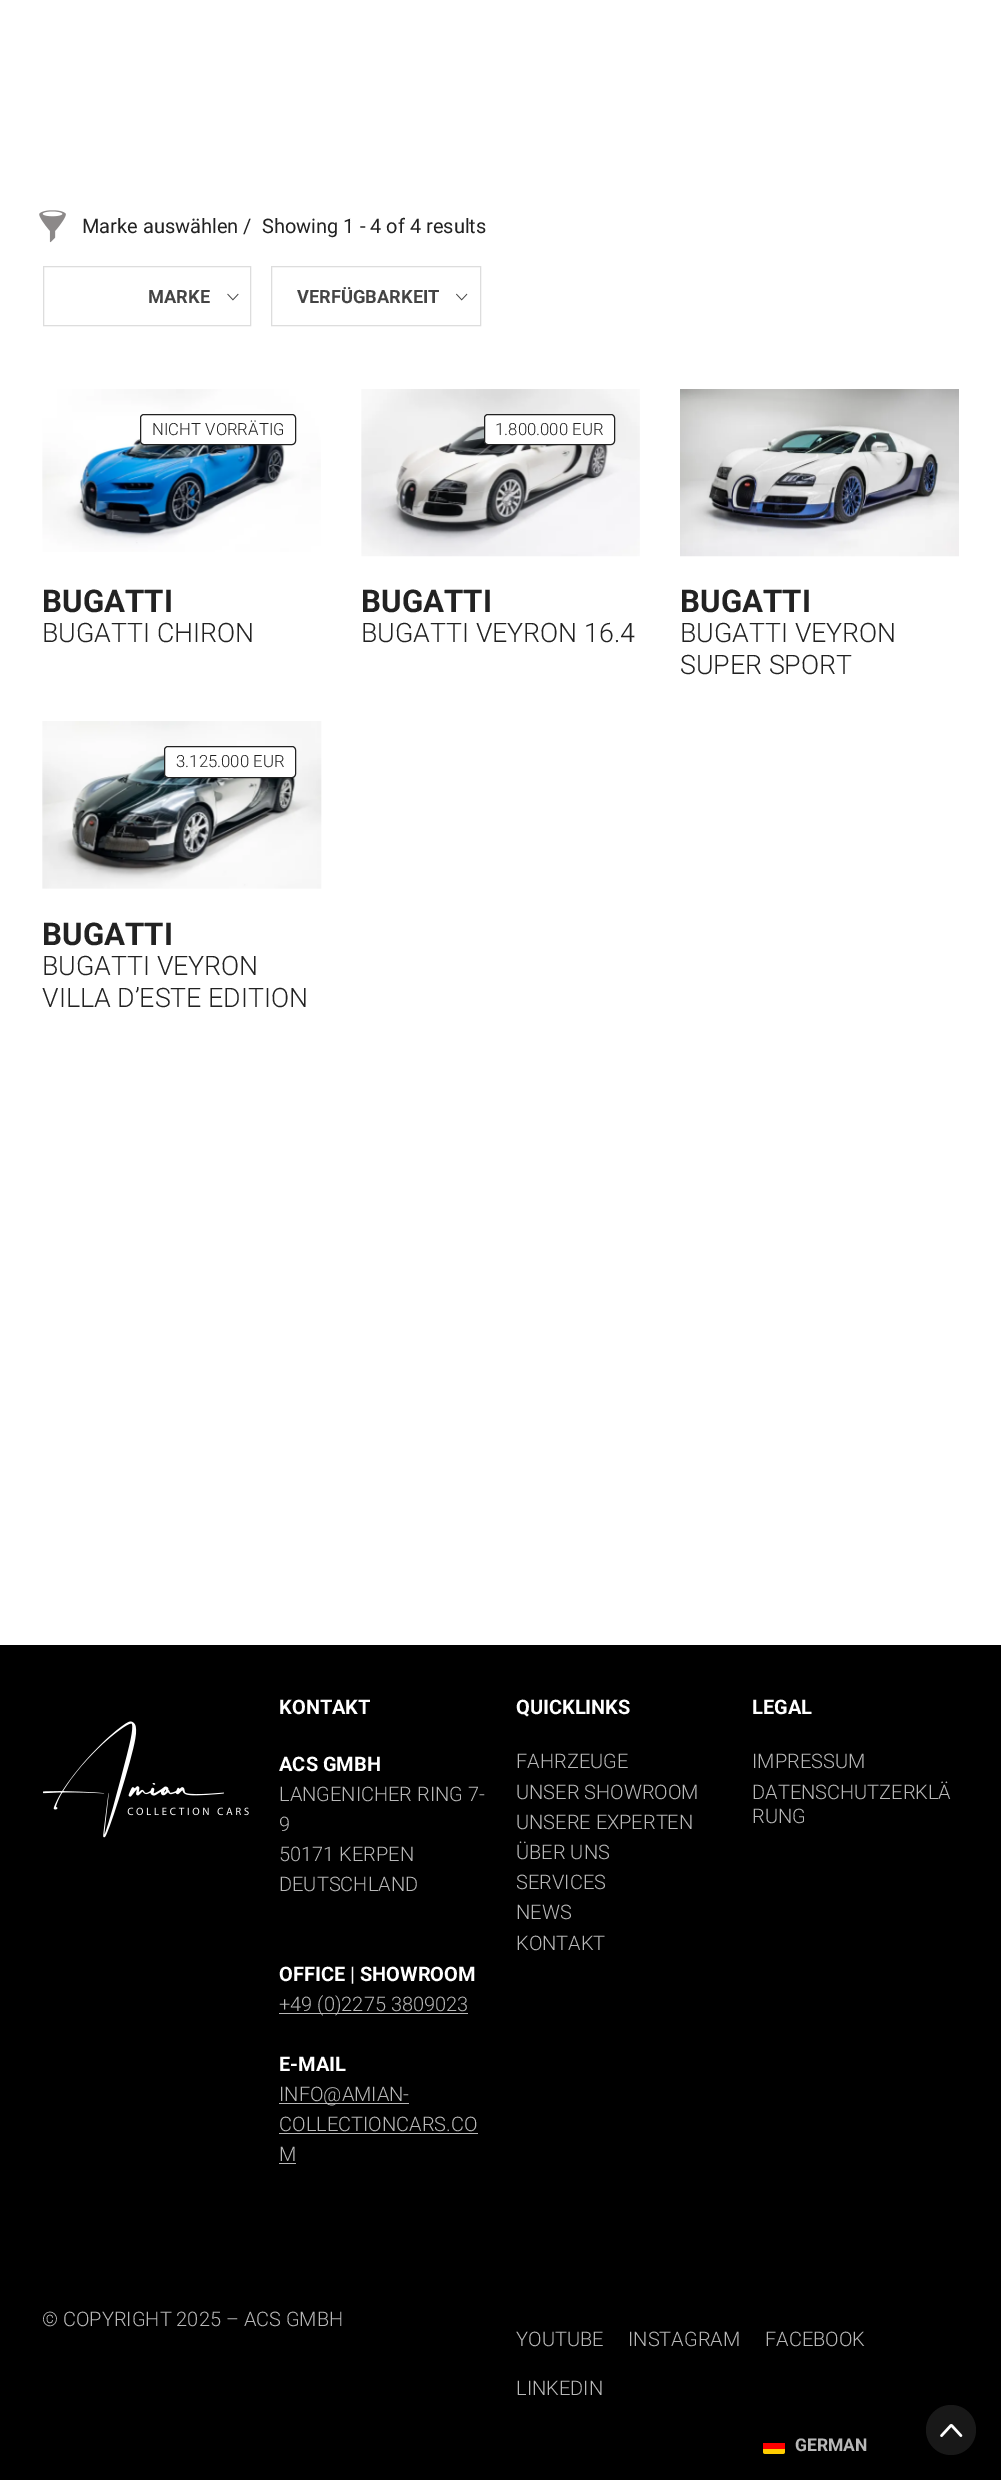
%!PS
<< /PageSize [1001 2480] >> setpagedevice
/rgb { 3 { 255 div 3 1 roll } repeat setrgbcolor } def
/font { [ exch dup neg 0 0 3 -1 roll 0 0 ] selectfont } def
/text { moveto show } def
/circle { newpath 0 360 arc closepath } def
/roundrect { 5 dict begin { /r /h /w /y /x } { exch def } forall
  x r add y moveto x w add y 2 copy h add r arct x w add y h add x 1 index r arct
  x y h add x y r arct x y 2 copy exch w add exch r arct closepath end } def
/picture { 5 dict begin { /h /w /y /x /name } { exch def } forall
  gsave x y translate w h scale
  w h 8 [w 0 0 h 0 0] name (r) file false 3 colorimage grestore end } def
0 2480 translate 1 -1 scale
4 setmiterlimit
255 255 255 rgb
0 0 1001 2480 rectfill
(img_01.rgb) 39 210 27 33 picture
221 221 221 rgb
43.5 266.5 207 59 rectstroke
(img_02.rgb) 227 293 12 8 picture
271.5 266.5 209 59 rectstroke
(img_03.rgb) 456 293 12 8 picture
(img_04.rgb) 42 389 279 163 picture
255 255 255 rgb
140.5 414.5 155 30 3.5 roundrect gsave fill grestore
34 34 34 rgb
stroke
(img_05.rgb) 361 389 279 168 picture
255 255 255 rgb
484.5 414.5 130 30 3.5 roundrect gsave fill grestore
34 34 34 rgb
stroke
(img_06.rgb) 680 389 279 168 picture
(img_07.rgb) 42 721 280 168 picture
255 255 255 rgb
164.5 746.5 131 31 3.5 roundrect gsave fill grestore
34 34 34 rgb
stroke
0 0 0 rgb
0 1645 1001 835 rectfill
(img_08.rgb) 43 1721 206 117 picture
184 184 184 rgb
279 2013 189 1 rectfill
279 2103 130 1 rectfill
279 2133 199 1 rectfill
279 2163 17 1 rectfill
255 204 0 rgb
763 2449 moveto 22 0 rlineto 0 2.5 rlineto 0 1.5 -1 2.5 -2.5 2.5 rcurveto -17 0 rlineto -1.5 0 -2.5 -1 -2.5 -2.5 rcurveto closepath fill
255 0 0 rgb
763 2443 22 6 rectfill
24 24 24 rgb
951 2430 25 circle fill
(img_09.rgb) 940 2424 23 13 picture
/Roboto-Regular 20 font
34 34 34 rgb
(Marke auswählen) 82 233 text
(/) 243 233 text
(Showing 1 - 4 of 4 results) 262 233 text
/Roboto-Bold 18.25 font
68 68 68 rgb
(MARKE) 148 303 text
(VERFÜGBARKEIT) 297 303 text
/Roboto-Light 16.75 font
34 34 34 rgb
(NICHT VORRÄTIG) 152 435 text
/Roboto-Bold 31.25 font
(BUGATTI) 42 612 text
/Roboto-Light 26.75 font
(BUGATTI CHIRON) 42 642 text
/Roboto-Light 16.75 font
(1.800.000 EUR) 495 435 text
/Roboto-Bold 31.25 font
(BUGATTI) 361 612 text
/Roboto-Light 26.75 font
(BUGATTI VEYRON 16.4) 361 642 text
/Roboto-Bold 31.25 font
(BUGATTI) 680 612 text
/Roboto-Light 26.75 font
(BUGATTI VEYRON) 680 642 text
(SUPER SPORT) 680 674 text
/Roboto-Light 16.75 font
(3.125.000 EUR) 176 767 text
/Roboto-Bold 31.25 font
(BUGATTI) 42 945 text
/Roboto-Light 26.75 font
(BUGATTI VEYRON) 42 975 text
(VILLA D’ESTE EDITION) 42 1007 text
/Roboto-Bold 20 font
255 255 255 rgb
(KONTAKT) 279 1714 text
(ACS GMBH) 279 1771 text
/Roboto-Light 20 font
184 184 184 rgb
(LANGENICHER RING 7-) 279 1801 text
(9) 279 1831 text
(50171 KERPEN) 279 1861 text
(DEUTSCHLAND) 279 1891 text
/Roboto-Bold 20 font
255 255 255 rgb
(OFFICE | SHOWROOM) 279 1981 text
/Roboto-Light 20 font
184 184 184 rgb
(+49 \(0\)2275 3809023) 279 2011 text
/Roboto-Bold 20 font
255 255 255 rgb
(E-MAIL) 279 2071 text
/Roboto-Light 20 font
184 184 184 rgb
(INFO@AMIAN-) 279 2101 text
(COLLECTIONCARS.CO) 279 2131 text
(M) 279 2161 text
/Roboto-Bold 20 font
255 255 255 rgb
(QUICKLINKS) 516 1714 text
/Roboto-Light 20 font
184 184 184 rgb
(FAHRZEUGE) 516 1768 text
(UNSER SHOWROOM) 516 1799 text
(UNSERE EXPERTEN) 516 1829 text
(ÜBER UNS) 516 1859 text
(SERVICES) 516 1889 text
(NEWS) 516 1919 text
(KONTAKT) 516 1950 text
/Roboto-Bold 20 font
255 255 255 rgb
(LEGAL) 752 1714 text
/Roboto-Light 20 font
184 184 184 rgb
(IMPRESSUM) 752 1768 text
(DATENSCHUTZERKLÄ) 752 1799 text
(RUNG) 752 1823 text
(© COPYRIGHT 2025 – ACS GMBH) 42 2326 text
(YOUTUBE) 516 2346 text
(INSTAGRAM) 628 2346 text
(FACEBOOK) 765 2346 text
(LINKEDIN) 516 2395 text
/Roboto-Bold 17.5 font
(GERMAN) 795 2451 text
showpage
